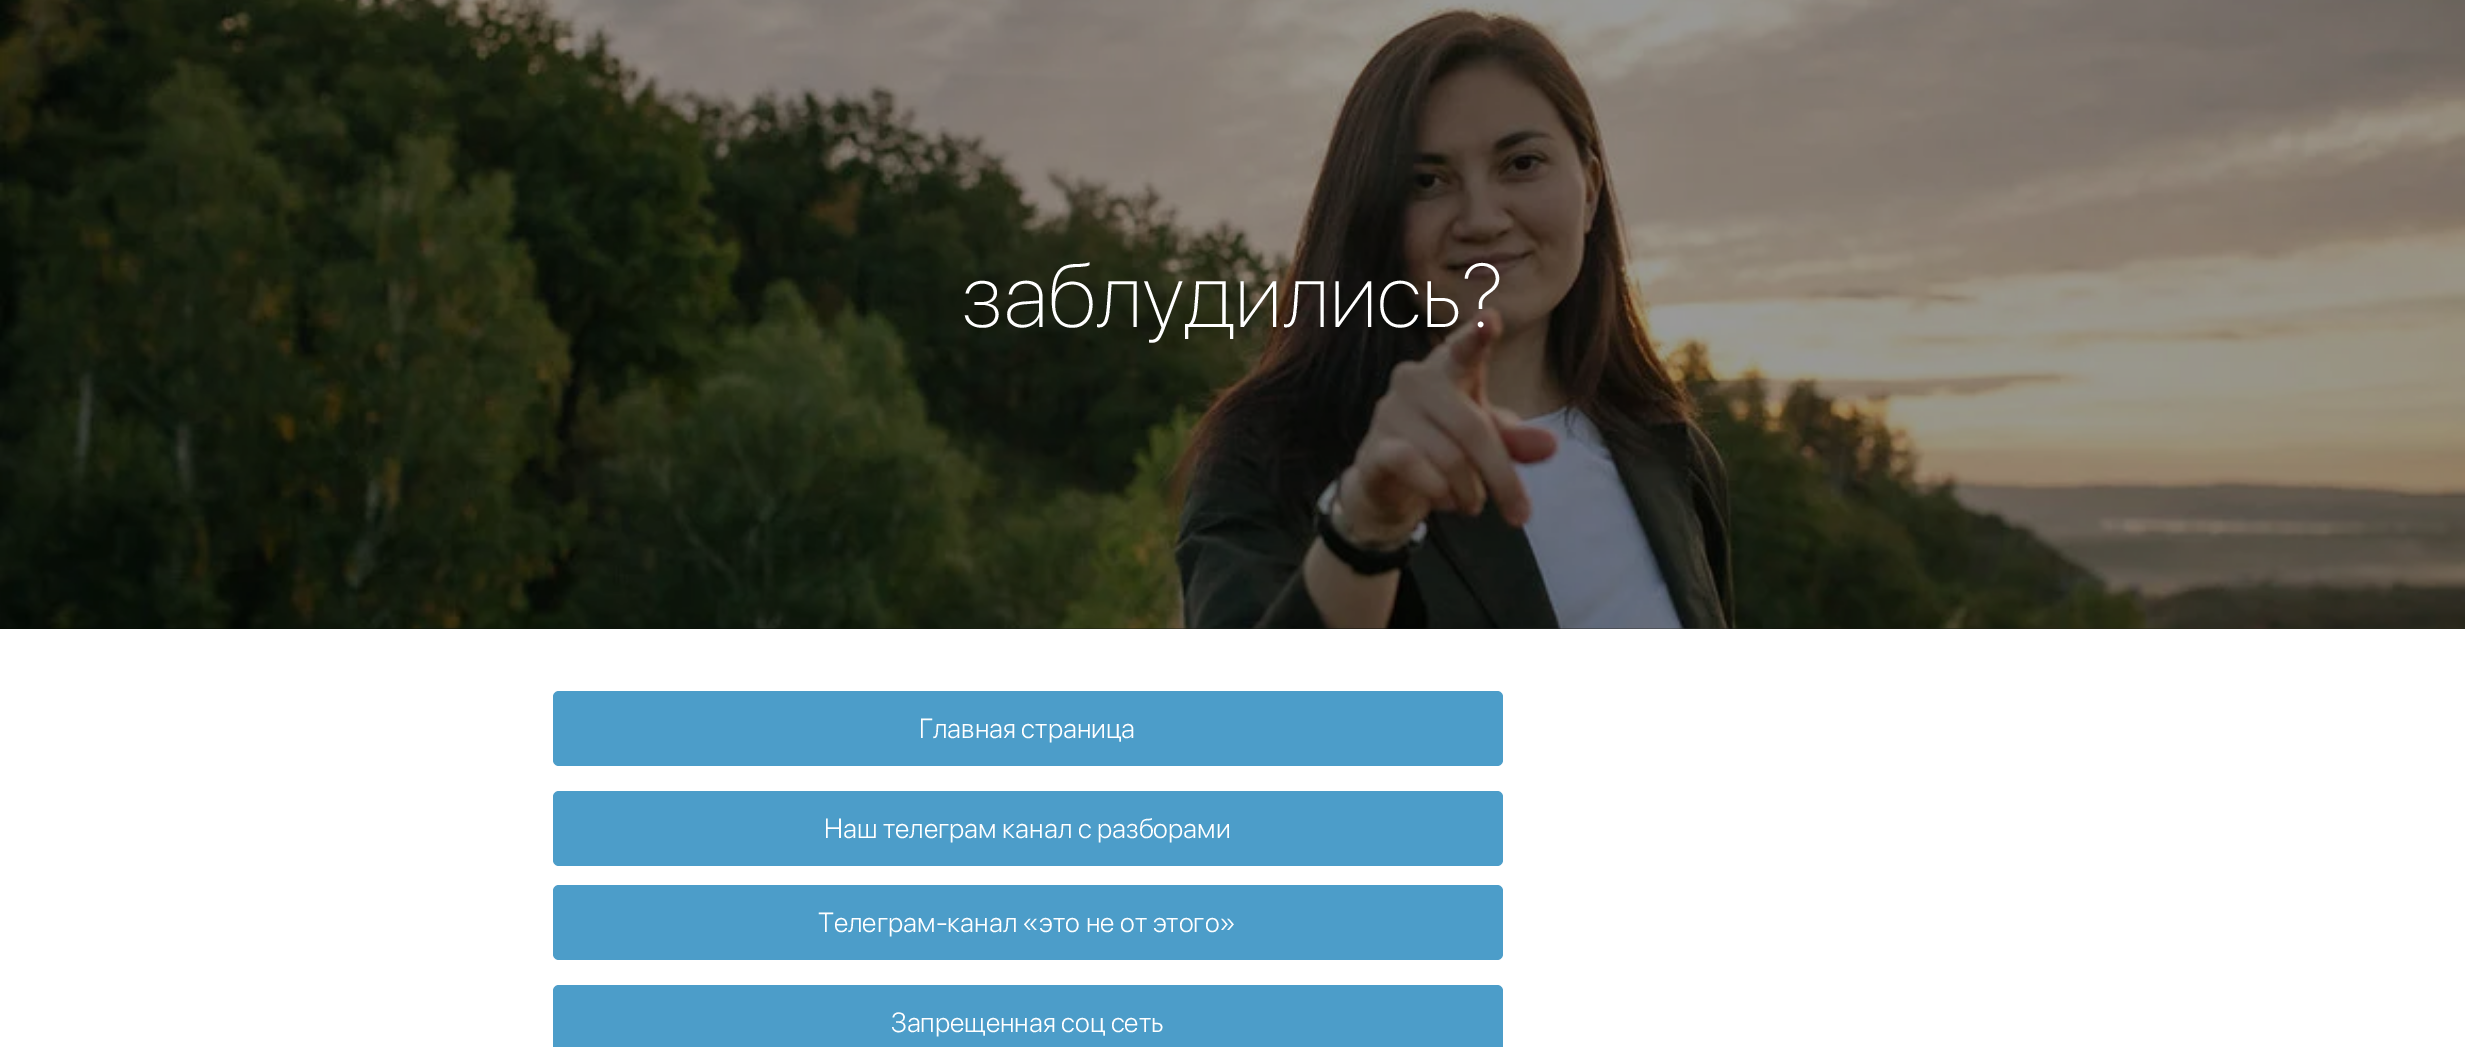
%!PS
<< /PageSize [2465 1047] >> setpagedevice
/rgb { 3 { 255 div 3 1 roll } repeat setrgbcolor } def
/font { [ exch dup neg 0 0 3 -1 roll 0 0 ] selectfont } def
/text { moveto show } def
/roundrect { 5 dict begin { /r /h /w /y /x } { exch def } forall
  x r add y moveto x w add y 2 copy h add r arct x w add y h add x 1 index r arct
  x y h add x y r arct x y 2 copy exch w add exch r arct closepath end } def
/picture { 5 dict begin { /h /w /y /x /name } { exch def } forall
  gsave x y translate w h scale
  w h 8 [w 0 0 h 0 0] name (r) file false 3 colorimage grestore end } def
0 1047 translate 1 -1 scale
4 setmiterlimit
255 255 255 rgb
0 0 2465 1047 rectfill
(img_01.rgb) 0 628 2465 1 picture
(img_02.rgb) 0 0 2465 629 picture
76 157 201 rgb
553 691 950 75 6 roundrect fill
553 791 950 75 6 roundrect fill
553 885 950 75 6 roundrect fill
553 985 950 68 6 roundrect fill
/SFProDisplay-Thin 90 font
255 255 255 rgb
962 327 moveto 0.6 0 (заблудились?) ashow
/SFProDisplay-Light 27.5 font
(Главная страница) 919 738 text
(Наш телеграм канал с разборами) 824 838 text
(Телеграм-канал «это не от этого») 818 932 text
(Запрещенная соц сеть) 891 1032 text
showpage
